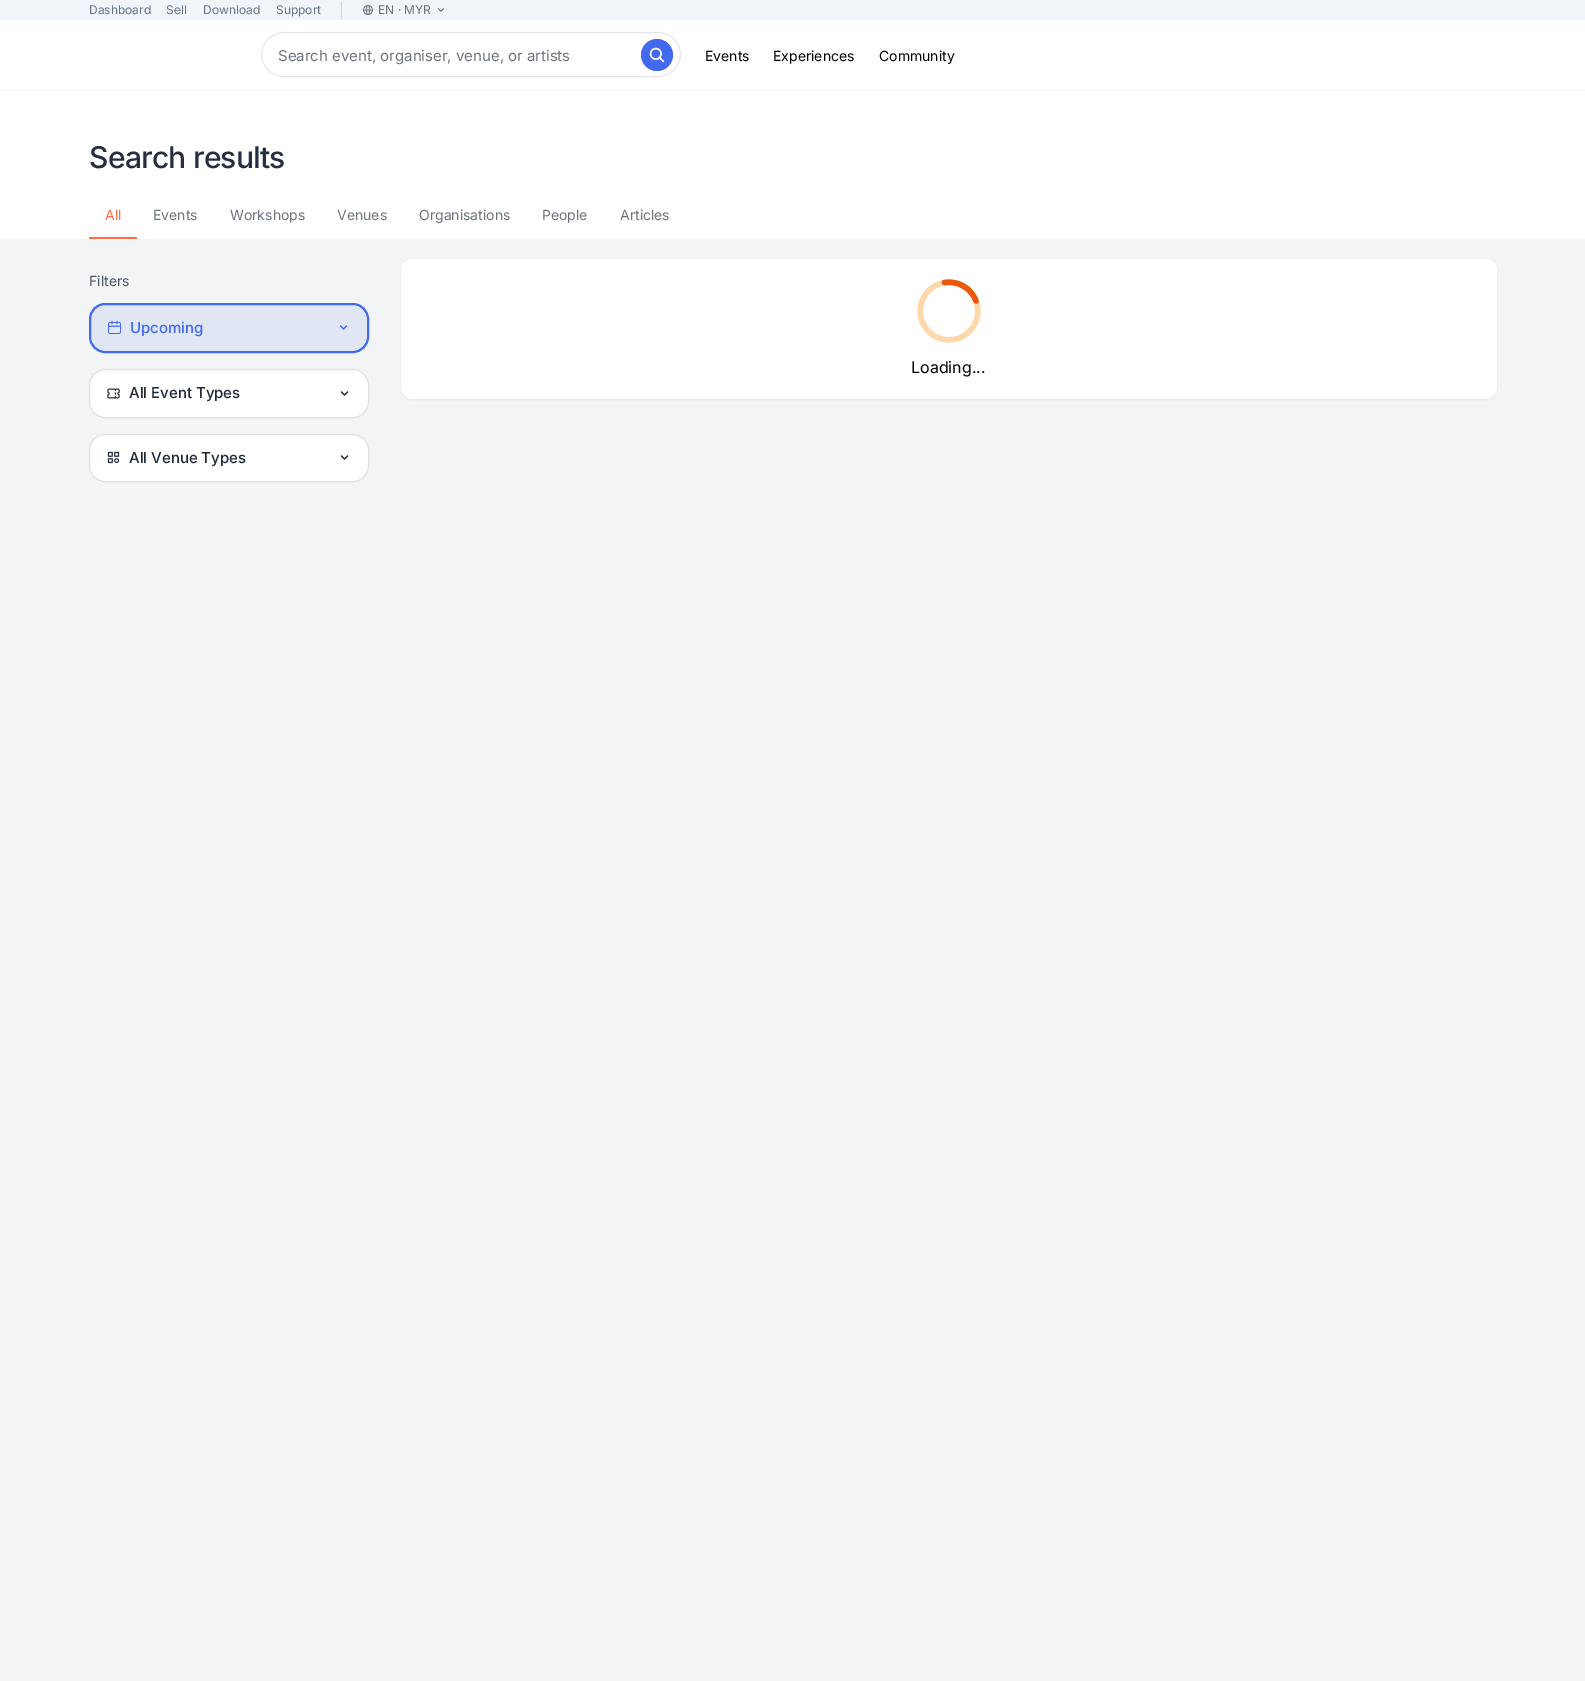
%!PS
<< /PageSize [1585 1681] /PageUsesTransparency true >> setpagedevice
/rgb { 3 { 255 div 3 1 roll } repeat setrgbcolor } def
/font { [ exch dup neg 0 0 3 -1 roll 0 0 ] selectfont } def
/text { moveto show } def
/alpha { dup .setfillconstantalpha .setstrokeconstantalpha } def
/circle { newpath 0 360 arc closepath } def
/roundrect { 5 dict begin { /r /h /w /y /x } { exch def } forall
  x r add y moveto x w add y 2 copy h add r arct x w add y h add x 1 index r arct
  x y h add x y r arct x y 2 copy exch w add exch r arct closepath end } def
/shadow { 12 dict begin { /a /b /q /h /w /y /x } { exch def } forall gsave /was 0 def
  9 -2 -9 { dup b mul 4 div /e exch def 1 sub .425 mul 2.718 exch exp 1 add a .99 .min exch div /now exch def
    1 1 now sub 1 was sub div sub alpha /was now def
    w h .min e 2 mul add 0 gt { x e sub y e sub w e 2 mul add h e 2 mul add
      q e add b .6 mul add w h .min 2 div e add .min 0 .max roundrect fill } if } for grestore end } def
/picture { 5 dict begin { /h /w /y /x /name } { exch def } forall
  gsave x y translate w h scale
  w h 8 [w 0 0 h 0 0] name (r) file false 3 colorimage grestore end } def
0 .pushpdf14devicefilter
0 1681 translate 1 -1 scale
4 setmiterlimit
255 255 255 rgb
0 0 1585 1681 rectfill
243 244 246 rgb
0 90 1585 1 rectfill
241 245 249 rgb
0 0 1585 20 rectfill
203 213 225 rgb
341 2 1 16 rectfill
(img_01.rgb) 363 5 10 10 picture
(img_02.rgb) 438 8 6 4 picture
229 231 235 rgb
261.5 32.5 419 44 22 roundrect stroke
67 105 239 rgb
657 55 16 circle fill
(img_03.rgb) 649 47 16 16 picture
253 109 63 rgb
89 237 48 2 rectfill
243 244 246 rgb
0 239 1585 1442 rectfill
225 230 245 rgb
90 304 278 48 15 roundrect gsave fill grestore
67 105 239 rgb
2 setlinewidth
stroke
(img_04.rgb) 108 320 13 14 picture
(img_05.rgb) 339 325 9 5 picture
255 255 255 rgb
89 369 280 49 16 roundrect fill
0.15 alpha
31 41 55 rgb
1 setlinewidth
89.5 369.5 279 48 15.5 roundrect stroke
1 alpha
(img_06.rgb) 107 388 13 11 picture
(img_07.rgb) 340 391 9 5 picture
255 255 255 rgb
89 434 280 48 16 roundrect fill
0.15 alpha
31 41 55 rgb
89.5 434.5 279 47 15.5 roundrect stroke
1 alpha
(img_08.rgb) 107 451 13 13 picture
(img_07.rgb) 340 455 9 5 picture
0 0 0 rgb
401 260 1096 140 12 1 0.05 shadow
255 255 255 rgb
401 259 1096 140 12 roundrect fill
(img_09.rgb) 917 279 64 64 picture
/Inter-Regular 12 font
100 116 139 rgb
(Dashboard) 89 14 text
(Sell) 166 14 text
(Download) 203 14 text
(Support) 276 14 text
107 114 128 rgb
(EN · MYR) 378 14 text
/Inter-Regular 15 font
(Search event, organiser, venue, or artists) 278 61 text
/Inter-Regular 14 font
0 0 0 rgb
(Events) 705 61 text
(Experiences) 773 61 text
(Community) 879 61 text
/Inter-Medium 30 font
40 46 65 rgb
89 168 moveto -0.75 0 (Search results) ashow
/Inter-Regular 14 font
253 109 63 rgb
(All) 105 220 text
107 114 128 rgb
(Events) 153 220 text
(Workshops) 230 220 text
(Venues) 337 220 text
(Organisations) 419 220 text
(People) 542 220 text
(Articles) 620 220 text
75 85 99 rgb
(Filters) 89 286 text
/Inter-Medium 15 font
67 105 239 rgb
(Upcoming) 130 333 text
31 41 55 rgb
(All Event Types) 129 398 text
(All Venue Types) 129 463 text
/Inter-Regular 16 font
0 0 0 rgb
(Loading...) 911 373 text
.poppdf14devicefilter showpage
